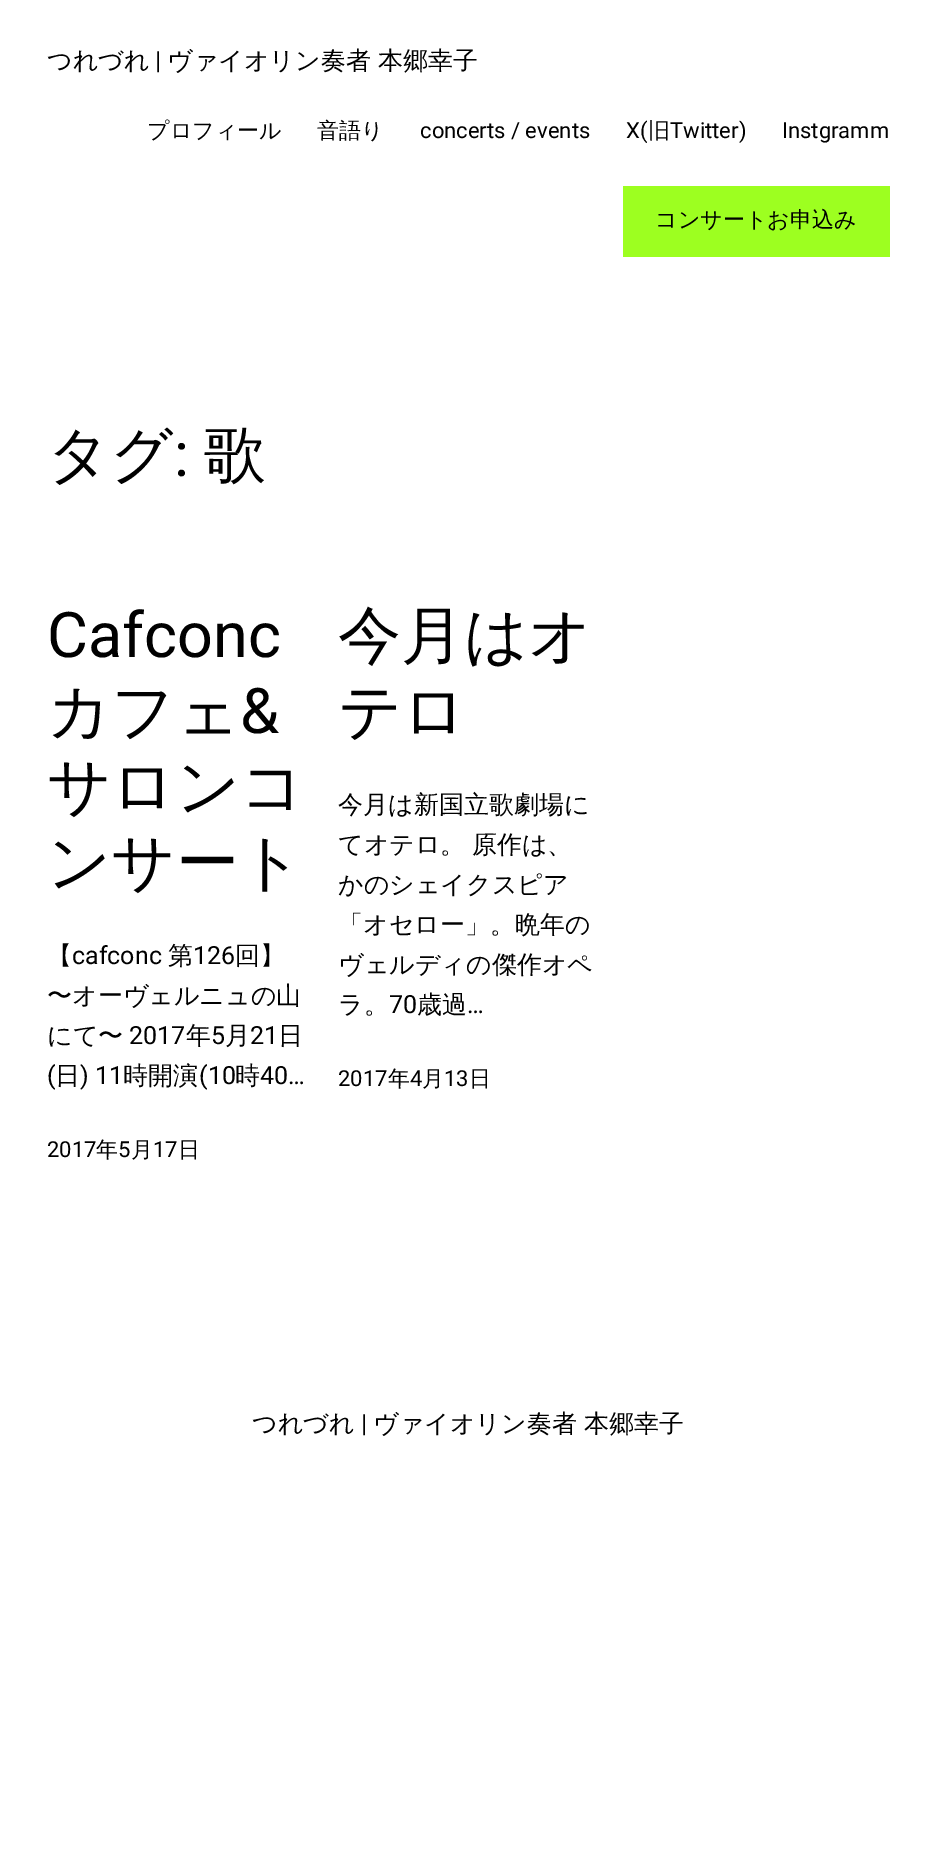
%!PS
<< /PageSize [935 1860] >> setpagedevice
/rgb { 3 { 255 div 3 1 roll } repeat setrgbcolor } def
/font { [ exch dup neg 0 0 3 -1 roll 0 0 ] selectfont } def
/text { moveto show } def
0 1860 translate 1 -1 scale
4 setmiterlimit
255 255 255 rgb
0 0 935 1860 rectfill
157 255 32 rgb
623 186 267 71 rectfill
/WenQuanYiZenHei-Medium 25 font
0 0 0 rgb
(つれづれ) 47 69 text
/Roboto-Regular 25 font
(|) 155 69 text
/WenQuanYiZenHei-Medium 25 font
(ヴァイオリン奏者 本郷幸子) 167 69 text
/WenQuanYiZenHei-Medium 22 font
(プロフィール) 147 138 text
(音語り) 317 138 text
/Roboto-Regular 22 font
(concerts / events) 420 138 text
(X\() 626 138 text
/WenQuanYiZenHei-Medium 22 font
(旧) 648 138 text
/Roboto-Regular 22 font
(Twitter\)) 670 138 text
(Instgramm) 782 138 text
/WenQuanYiZenHei-Medium 22 font
(コンサートお申込み) 655 227 text
/WenQuanYiZenHei-Medium 62 font
(タグ) 47 476 text
/Roboto-Regular 62 font
(:) 174 476 text
/WenQuanYiZenHei-Medium 62 font
(歌) 204 476 text
/Roboto-Regular 63 font
(Cafconc) 47 657 text
/WenQuanYiZenHei-Medium 63 font
(カフェ) 47 733 text
/Roboto-Regular 63 font
(&) 240 733 text
/WenQuanYiZenHei-Medium 63 font
(サロンコ) 47 808 text
(ンサート) 47 884 text
/WenQuanYiZenHei-Medium 25 font
(【) 47 964 text
/Roboto-Regular 25 font
(cafconc) 72 964 text
/WenQuanYiZenHei-Medium 25 font
(第) 168 964 text
/Roboto-Regular 25 font
(126) 193 964 text
/WenQuanYiZenHei-Medium 25 font
(回】) 235 964 text
(〜オーヴェルニュの山) 47 1004 text
(にて〜) 47 1044 text
/Roboto-Regular 25 font
(2017) 129 1044 text
/WenQuanYiZenHei-Medium 25 font
(年) 186 1044 text
/Roboto-Regular 25 font
(5) 211 1044 text
/WenQuanYiZenHei-Medium 25 font
(月) 225 1044 text
/Roboto-Regular 25 font
(21) 250 1044 text
/WenQuanYiZenHei-Medium 25 font
(日) 278 1044 text
/Roboto-Regular 25 font
(\() 47 1084 text
/WenQuanYiZenHei-Medium 25 font
(日) 55 1084 text
/Roboto-Regular 25 font
(\) 11) 80 1084 text
/WenQuanYiZenHei-Medium 25 font
(時開演) 123 1084 text
/Roboto-Regular 25 font
(\(10) 199 1084 text
/WenQuanYiZenHei-Medium 25 font
(時) 235 1084 text
/Roboto-Regular 25 font
(40…) 260 1084 text
/Roboto-Regular 22 font
(2017) 47 1157 text
/WenQuanYiZenHei-Medium 22 font
(年) 96 1157 text
/Roboto-Regular 22 font
(5) 118 1157 text
/WenQuanYiZenHei-Medium 22 font
(月) 131 1157 text
/Roboto-Regular 22 font
(17) 153 1157 text
/WenQuanYiZenHei-Medium 22 font
(日) 178 1157 text
/WenQuanYiZenHei-Medium 63 font
(今月はオ) 338 657 text
(テロ) 338 733 text
/WenQuanYiZenHei-Medium 25 font
(今月は新国立歌劇場に) 338 813 text
338 853 moveto -1 0 32 (てオテロ。 原作は、) widthshow
(かのシェイクスピア) 338 893 text
(「オセロー」。晩年の) 338 933 text
(ヴェルディの傑作オペ) 338 973 text
(ラ。) 338 1013 text
/Roboto-Regular 25 font
(70) 389 1013 text
/WenQuanYiZenHei-Medium 25 font
(歳過) 417 1013 text
/Roboto-Regular 25 font
(…) 467 1013 text
/Roboto-Regular 22 font
(2017) 338 1086 text
/WenQuanYiZenHei-Medium 22 font
(年) 388 1086 text
/Roboto-Regular 22 font
(4) 410 1086 text
/WenQuanYiZenHei-Medium 22 font
(月) 422 1086 text
/Roboto-Regular 22 font
(13) 444 1086 text
/WenQuanYiZenHei-Medium 22 font
(日) 469 1086 text
/WenQuanYiZenHei-Medium 25 font
(つれづれ) 252 1432 text
/Roboto-Regular 25 font
(|) 361 1432 text
/WenQuanYiZenHei-Medium 25 font
(ヴァイオリン奏者 本郷幸子) 373 1432 text
showpage
